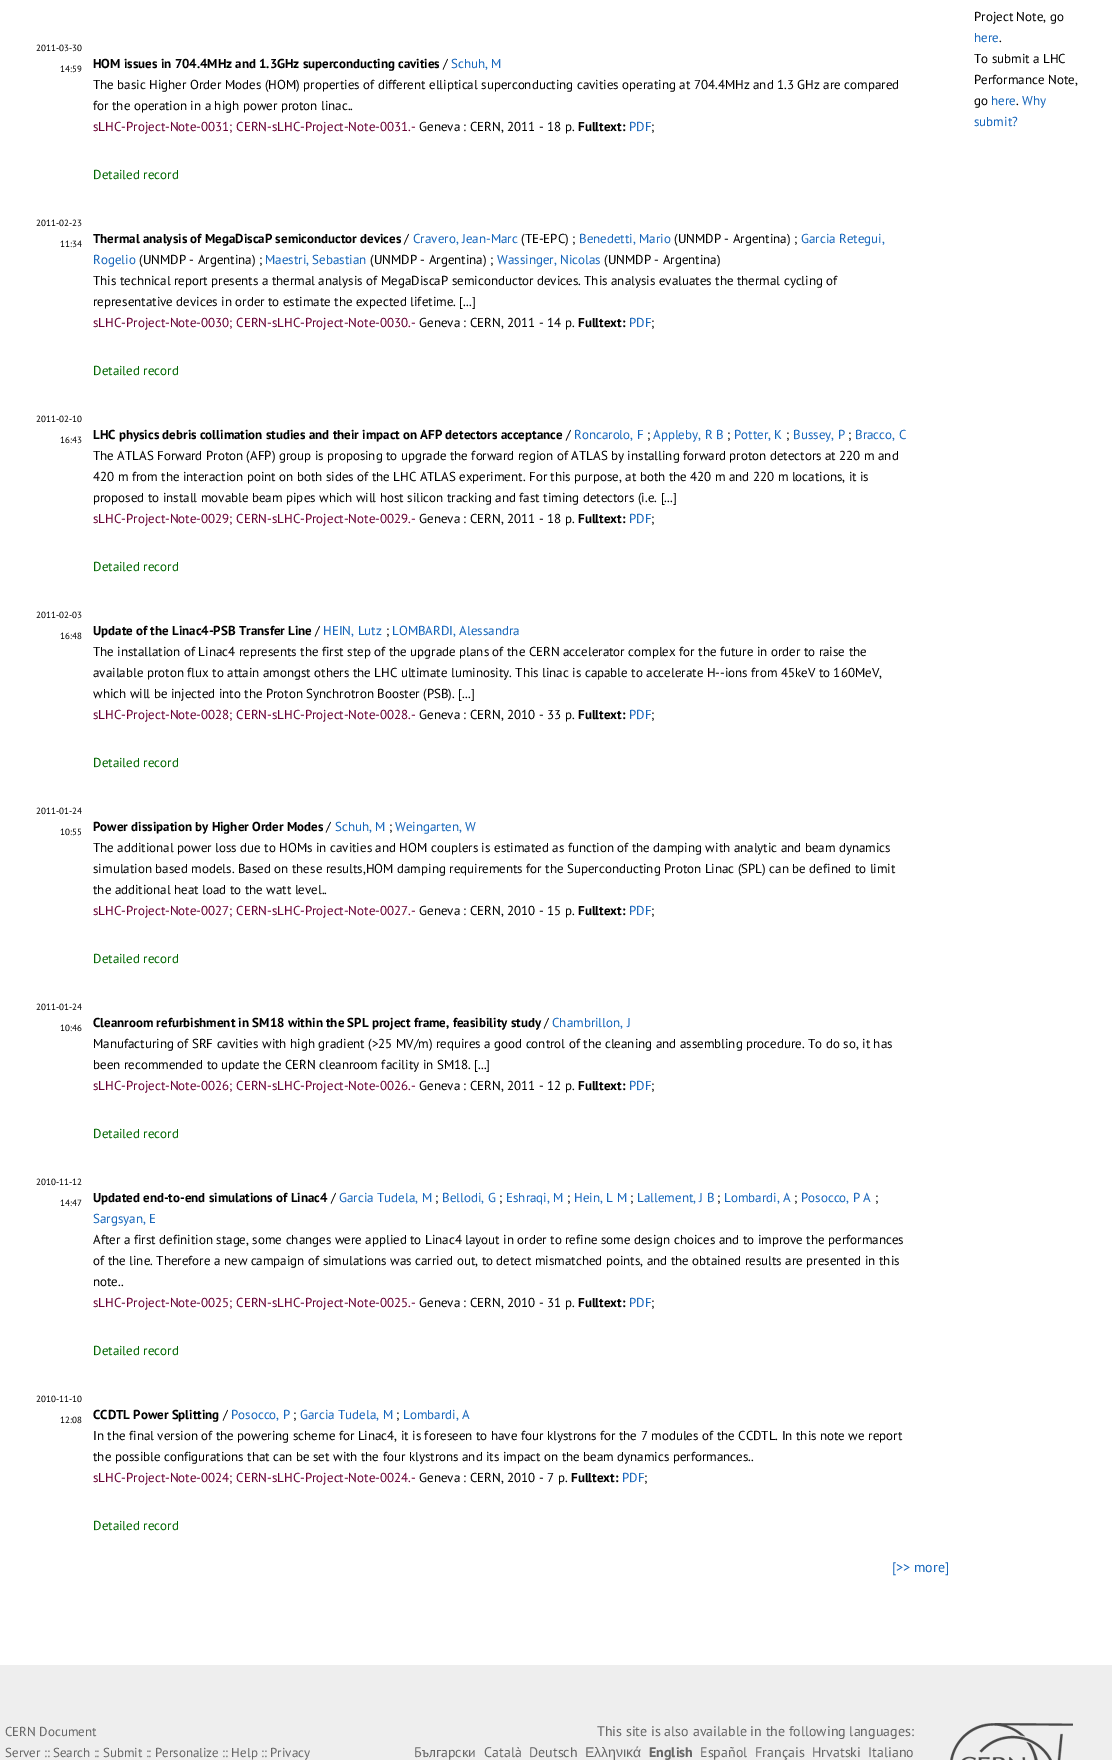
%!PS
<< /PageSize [1112 1760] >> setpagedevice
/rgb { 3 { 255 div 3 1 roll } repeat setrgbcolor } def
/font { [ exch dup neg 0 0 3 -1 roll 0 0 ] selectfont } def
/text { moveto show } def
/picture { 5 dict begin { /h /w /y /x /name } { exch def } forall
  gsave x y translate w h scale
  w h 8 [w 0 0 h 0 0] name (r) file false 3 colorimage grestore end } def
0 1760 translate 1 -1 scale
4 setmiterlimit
255 255 255 rgb
0 0 1112 1760 rectfill
238 238 238 rgb
0 1665 1112 95 rectfill
(img_01.rgb) 950 1723 123 37 picture
/PTSans-Regular 9 font
0 0 0 rgb
(2011-03-30) 36 51 text
(14:59) 60 72 text
/PTSans-Bold 13 font
(HOM issues in 704.4MHz and 1.3GHz superconducting cavities) 93 68 text
/PTSans-Regular 13 font
(/) 443 68 text
21 101 186 rgb
(Schuh, M) 451 68 text
0 0 0 rgb
(The basic Higher Order Modes \(HOM\) properties of different elliptical superconducting cavities operating at 704.4MHz and 1.3 GHz are compared) 93 89 text
(for the operation in a high power proton linac..) 93 110 text
102 0 51 rgb
(sLHC-Project-Note-0031; CERN-sLHC-Project-Note-0031.-) 93 131 text
0 0 0 rgb
(Geneva : CERN, 2011 - 18 p.) 419 131 text
/PTSans-Bold 13 font
(Fulltext:) 578 131 text
/PTSans-Regular 13 font
21 101 186 rgb
(PDF) 629 131 text
0 0 0 rgb
(;) 651 131 text
0 102 0 rgb
(Detailed record) 93 179 text
/PTSans-Regular 9 font
0 0 0 rgb
(2011-02-23) 36 226 text
(11:34) 60 247 text
/PTSans-Bold 13 font
(Thermal analysis of MegaDiscaP semiconductor devices) 93 243 text
/PTSans-Regular 13 font
(/) 404 243 text
21 101 186 rgb
(Cravero, Jean-Marc) 413 243 text
0 0 0 rgb
(\(TE-EPC\) ;) 521 243 text
21 101 186 rgb
(Benedetti, Mario) 579 243 text
0 0 0 rgb
(\(UNMDP - Argentina\) ;) 674 243 text
21 101 186 rgb
(Garcia Retegui,) 801 243 text
(Rogelio) 93 264 text
0 0 0 rgb
(\(UNMDP - Argentina\) ;) 139 264 text
21 101 186 rgb
(Maestri, Sebastian) 265 264 text
0 0 0 rgb
(\(UNMDP - Argentina\) ;) 370 264 text
21 101 186 rgb
(Wassinger, Nicolas) 497 264 text
0 0 0 rgb
(\(UNMDP - Argentina\)) 604 264 text
(This technical report presents a thermal analysis of MegaDiscaP semiconductor devices. This analysis evaluates the thermal cycling of) 93 285 text
(representative devices in order to estimate the expected lifetime. [...]) 93 306 text
102 0 51 rgb
(sLHC-Project-Note-0030; CERN-sLHC-Project-Note-0030.-) 93 327 text
0 0 0 rgb
(Geneva : CERN, 2011 - 14 p.) 419 327 text
/PTSans-Bold 13 font
(Fulltext:) 578 327 text
/PTSans-Regular 13 font
21 101 186 rgb
(PDF) 629 327 text
0 0 0 rgb
(;) 651 327 text
0 102 0 rgb
(Detailed record) 93 375 text
/PTSans-Regular 9 font
0 0 0 rgb
(2011-02-10) 36 422 text
(16:43) 60 443 text
/PTSans-Bold 13 font
(LHC physics debris collimation studies and their impact on AFP detectors acceptance) 93 439 text
/PTSans-Regular 13 font
(/) 566 439 text
21 101 186 rgb
(Roncarolo, F) 574 439 text
0 0 0 rgb
(;) 647 439 text
21 101 186 rgb
(Appleby, R B) 653 439 text
0 0 0 rgb
(;) 727 439 text
21 101 186 rgb
(Potter, K) 734 439 text
0 0 0 rgb
(;) 786 439 text
21 101 186 rgb
(Bussey, P) 793 439 text
0 0 0 rgb
(;) 848 439 text
21 101 186 rgb
(Bracco, C) 855 439 text
0 0 0 rgb
(The ATLAS Forward Proton \(AFP\) group is proposing to upgrade the forward region of ATLAS by installing forward proton detectors at 220 m and) 93 460 text
(420 m from the interaction point on both sides of the LHC ATLAS experiment. For this purpose, at both the 420 m and 220 m locations, it is) 93 481 text
(proposed to install movable beam pipes which will host silicon tracking and fast timing detectors \(i.e. [...]) 93 502 text
102 0 51 rgb
(sLHC-Project-Note-0029; CERN-sLHC-Project-Note-0029.-) 93 523 text
0 0 0 rgb
(Geneva : CERN, 2011 - 18 p.) 419 523 text
/PTSans-Bold 13 font
(Fulltext:) 578 523 text
/PTSans-Regular 13 font
21 101 186 rgb
(PDF) 629 523 text
0 0 0 rgb
(;) 651 523 text
0 102 0 rgb
(Detailed record) 93 571 text
/PTSans-Regular 9 font
0 0 0 rgb
(2011-02-03) 36 618 text
(16:48) 60 639 text
/PTSans-Bold 13 font
(Update of the Linac4-PSB Transfer Line) 93 635 text
/PTSans-Regular 13 font
(/) 315 635 text
21 101 186 rgb
(HEIN, Lutz) 323 635 text
0 0 0 rgb
(;) 386 635 text
21 101 186 rgb
(LOMBARDI, Alessandra) 392 635 text
0 0 0 rgb
(The installation of Linac4 represents the first step of the upgrade plans of the CERN accelerator complex for the future in order to raise the) 93 656 text
(available proton flux to attain amongst others the LHC ultimate luminosity. This linac is capable to accelerate H--ions from 45keV to 160MeV,) 93 677 text
(which will be injected into the Proton Synchrotron Booster \(PSB\). [...]) 93 698 text
102 0 51 rgb
(sLHC-Project-Note-0028; CERN-sLHC-Project-Note-0028.-) 93 719 text
0 0 0 rgb
(Geneva : CERN, 2010 - 33 p.) 419 719 text
/PTSans-Bold 13 font
(Fulltext:) 578 719 text
/PTSans-Regular 13 font
21 101 186 rgb
(PDF) 629 719 text
0 0 0 rgb
(;) 651 719 text
0 102 0 rgb
(Detailed record) 93 767 text
/PTSans-Regular 9 font
0 0 0 rgb
(2011-01-24) 36 814 text
(10:55) 60 835 text
/PTSans-Bold 13 font
(Power dissipation by Higher Order Modes) 93 831 text
/PTSans-Regular 13 font
(/) 326 831 text
21 101 186 rgb
(Schuh, M) 335 831 text
0 0 0 rgb
(;) 389 831 text
21 101 186 rgb
(Weingarten, W) 395 831 text
0 0 0 rgb
(The additional power loss due to HOMs in cavities and HOM couplers is estimated as function of the damping with analytic and beam dynamics) 93 852 text
(simulation based models. Based on these results,HOM damping requirements for the Superconducting Proton Linac \(SPL\) can be defined to limit) 93 873 text
(the additional heat load to the watt level..) 93 894 text
102 0 51 rgb
(sLHC-Project-Note-0027; CERN-sLHC-Project-Note-0027.-) 93 915 text
0 0 0 rgb
(Geneva : CERN, 2010 - 15 p.) 419 915 text
/PTSans-Bold 13 font
(Fulltext:) 578 915 text
/PTSans-Regular 13 font
21 101 186 rgb
(PDF) 629 915 text
0 0 0 rgb
(;) 651 915 text
0 102 0 rgb
(Detailed record) 93 963 text
/PTSans-Regular 9 font
0 0 0 rgb
(2011-01-24) 36 1010 text
(10:46) 60 1031 text
/PTSans-Bold 13 font
(Cleanroom refurbishment in SM18 within the SPL project frame, feasibility study) 93 1027 text
/PTSans-Regular 13 font
(/) 544 1027 text
21 101 186 rgb
(Chambrillon, J) 552 1027 text
0 0 0 rgb
(Manufacturing of SRF cavities with high gradient \(>25 MV/m\) requires a good control of the cleaning and assembling procedure. To do so, it has) 93 1048 text
(been recommended to update the CERN cleanroom facility in SM18. [...]) 93 1069 text
102 0 51 rgb
(sLHC-Project-Note-0026; CERN-sLHC-Project-Note-0026.-) 93 1090 text
0 0 0 rgb
(Geneva : CERN, 2011 - 12 p.) 419 1090 text
/PTSans-Bold 13 font
(Fulltext:) 578 1090 text
/PTSans-Regular 13 font
21 101 186 rgb
(PDF) 629 1090 text
0 0 0 rgb
(;) 651 1090 text
0 102 0 rgb
(Detailed record) 93 1138 text
/PTSans-Regular 9 font
0 0 0 rgb
(2010-11-12) 36 1185 text
(14:47) 60 1206 text
/PTSans-Bold 13 font
(Updated end-to-end simulations of Linac4) 93 1202 text
/PTSans-Regular 13 font
(/) 331 1202 text
21 101 186 rgb
(Garcia Tudela, M) 339 1202 text
0 0 0 rgb
(;) 435 1202 text
21 101 186 rgb
(Bellodi, G) 442 1202 text
0 0 0 rgb
(;) 499 1202 text
21 101 186 rgb
(Eshraqi, M) 506 1202 text
0 0 0 rgb
(;) 567 1202 text
21 101 186 rgb
(Hein, L M) 574 1202 text
0 0 0 rgb
(;) 630 1202 text
21 101 186 rgb
(Lallement, J B) 637 1202 text
0 0 0 rgb
(;) 717 1202 text
21 101 186 rgb
(Lombardi, A) 724 1202 text
0 0 0 rgb
(;) 794 1202 text
21 101 186 rgb
(Posocco, P A) 801 1202 text
0 0 0 rgb
(;) 875 1202 text
21 101 186 rgb
(Sargsyan, E) 93 1223 text
0 0 0 rgb
(After a first definition stage, some changes were applied to Linac4 layout in order to refine some design choices and to improve the performances) 93 1244 text
(of the line. Therefore a new campaign of simulations was carried out, to detect mismatched points, and the obtained results are presented in this) 93 1265 text
(note..) 93 1286 text
102 0 51 rgb
(sLHC-Project-Note-0025; CERN-sLHC-Project-Note-0025.-) 93 1307 text
0 0 0 rgb
(Geneva : CERN, 2010 - 31 p.) 419 1307 text
/PTSans-Bold 13 font
(Fulltext:) 578 1307 text
/PTSans-Regular 13 font
21 101 186 rgb
(PDF) 629 1307 text
0 0 0 rgb
(;) 651 1307 text
0 102 0 rgb
(Detailed record) 93 1355 text
/PTSans-Regular 9 font
0 0 0 rgb
(2010-11-10) 36 1402 text
(12:08) 60 1423 text
/PTSans-Bold 13 font
(CCDTL Power Splitting) 93 1419 text
/PTSans-Regular 13 font
(/) 223 1419 text
21 101 186 rgb
(Posocco, P) 231 1419 text
0 0 0 rgb
(;) 293 1419 text
21 101 186 rgb
(Garcia Tudela, M) 300 1419 text
0 0 0 rgb
(;) 396 1419 text
21 101 186 rgb
(Lombardi, A) 403 1419 text
0 0 0 rgb
(In the final version of the powering scheme for Linac4, it is foreseen to have four klystrons for the 7 modules of the CCDTL. In this note we report) 93 1440 text
(the possible configurations that can be set with the four klystrons and its impact on the beam dynamics performances..) 93 1461 text
102 0 51 rgb
(sLHC-Project-Note-0024; CERN-sLHC-Project-Note-0024.-) 93 1482 text
0 0 0 rgb
(Geneva : CERN, 2010 - 7 p.) 419 1482 text
/PTSans-Bold 13 font
(Fulltext:) 571 1482 text
/PTSans-Regular 13 font
21 101 186 rgb
(PDF) 622 1482 text
0 0 0 rgb
(;) 644 1482 text
0 102 0 rgb
(Detailed record) 93 1530 text
/PTSans-Regular 14 font
21 101 186 rgb
([>> more]) 892 1572 text
/PTSans-Regular 13 font
0 0 0 rgb
(Project Note, go) 974 21 text
21 101 186 rgb
(here) 974 42 text
0 0 0 rgb
(.) 999 42 text
(To submit a LHC) 974 63 text
(Performance Note,) 974 84 text
(go) 974 105 text
21 101 186 rgb
(here) 991 105 text
0 0 0 rgb
(.) 1016 105 text
21 101 186 rgb
(Why) 1022 105 text
(submit?) 974 126 text
102 102 102 rgb
(CERN Document) 5 1736 text
(Server :: Search :: Submit :: Personalize :: Help :: Privacy) 5 1757 text
/PTSans-Regular 14 font
(This site is also available in the following languages:) 597 1736 text
(Български) 414 1757 text
(Català) 484 1757 text
(Deutsch) 529 1757 text
/LiberationSans-Regular 14 font
(Ελληνικά) 585 1757 text
/PTSans-Bold 14 font
(English) 649 1757 text
/PTSans-Regular 14 font
(Español) 700 1757 text
(Français) 755 1757 text
(Hrvatski) 812 1757 text
(Italiano) 868 1757 text
showpage
